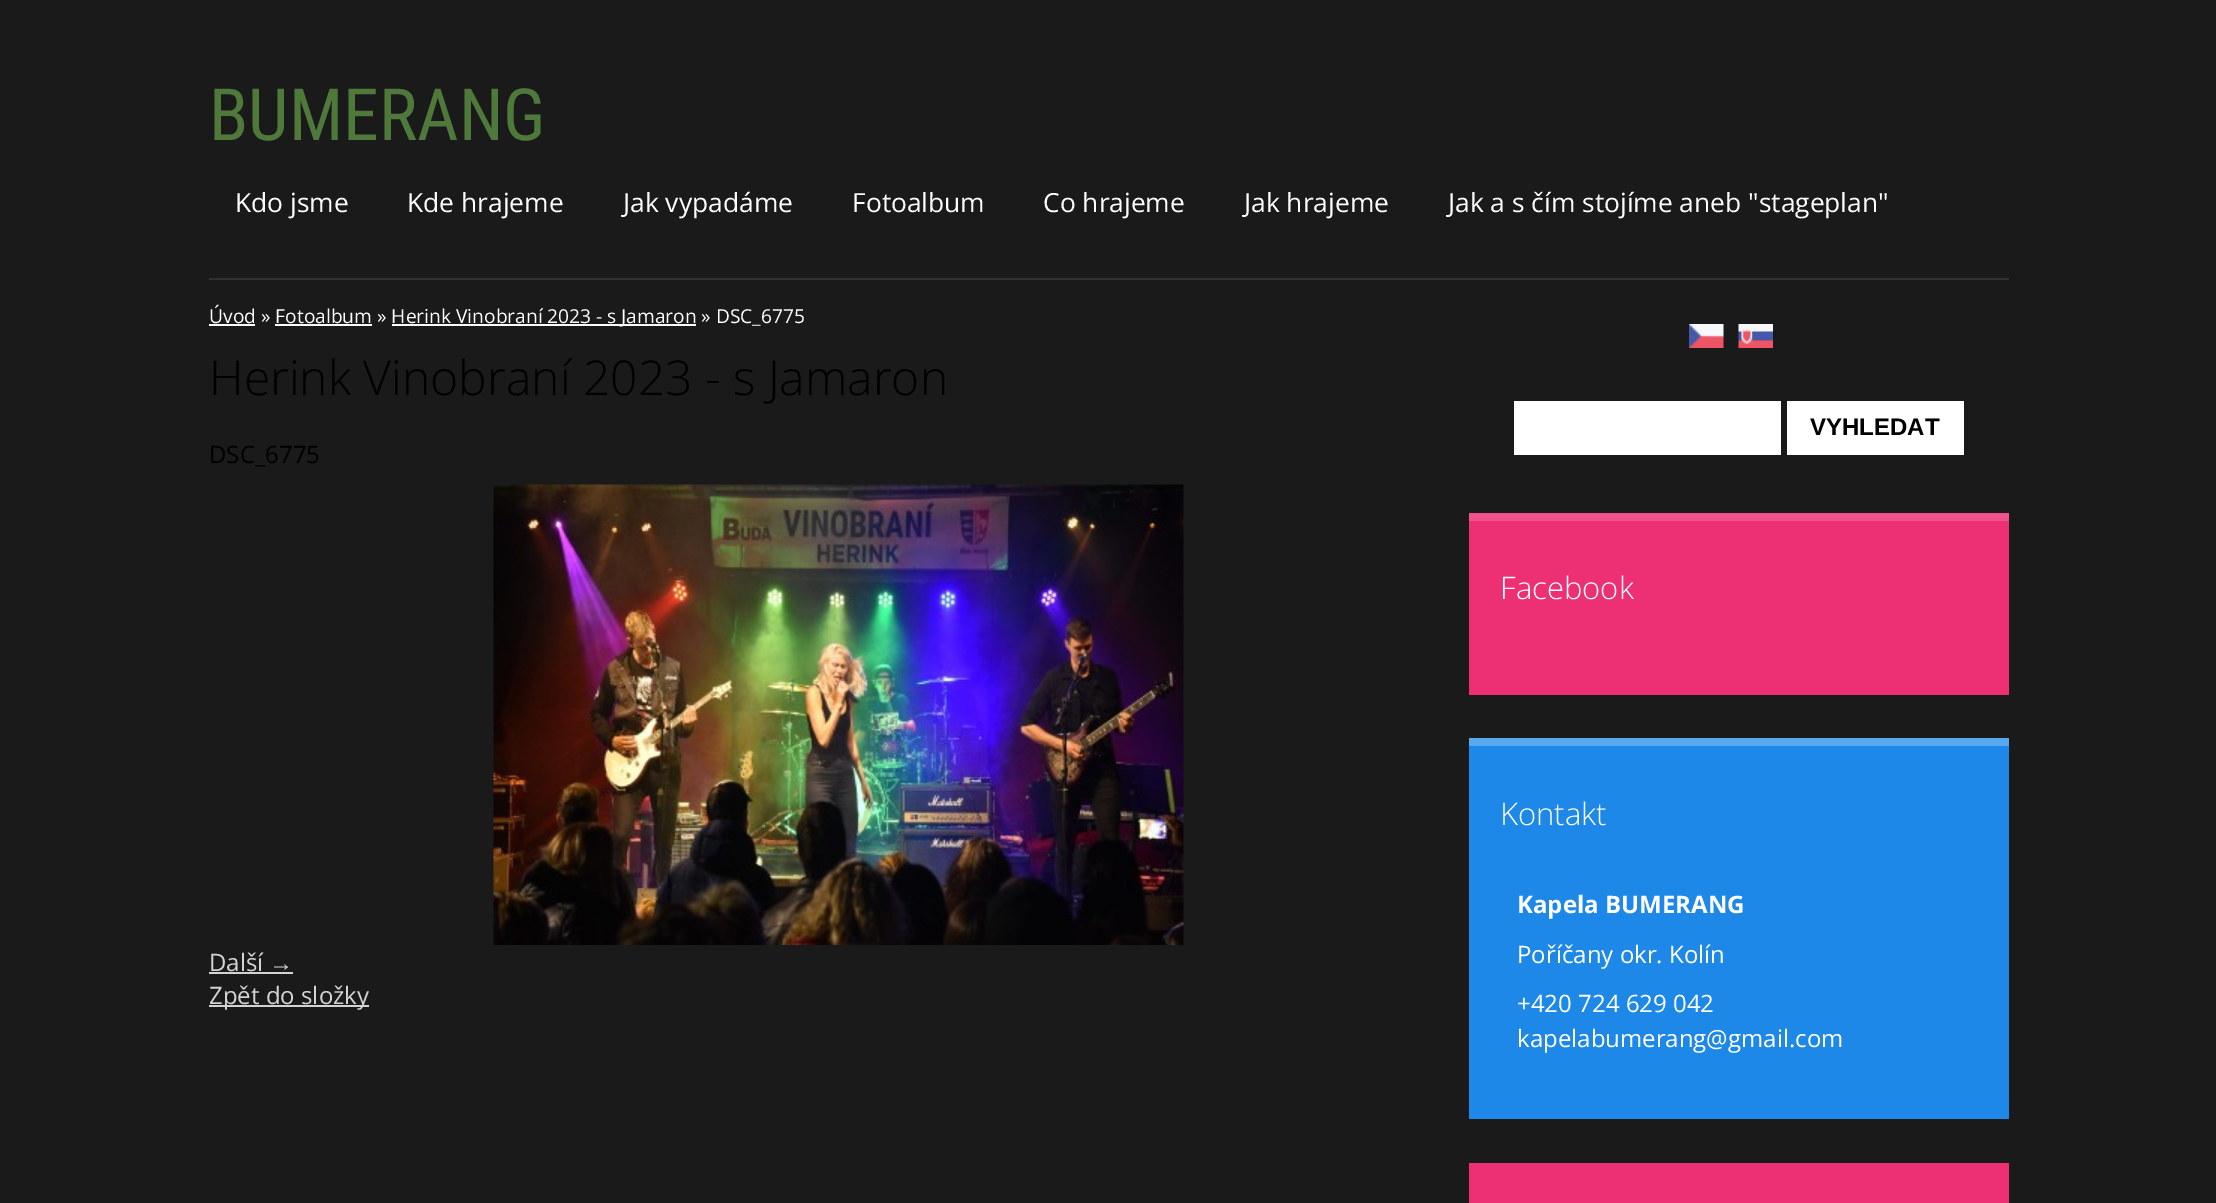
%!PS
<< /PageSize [2216 1203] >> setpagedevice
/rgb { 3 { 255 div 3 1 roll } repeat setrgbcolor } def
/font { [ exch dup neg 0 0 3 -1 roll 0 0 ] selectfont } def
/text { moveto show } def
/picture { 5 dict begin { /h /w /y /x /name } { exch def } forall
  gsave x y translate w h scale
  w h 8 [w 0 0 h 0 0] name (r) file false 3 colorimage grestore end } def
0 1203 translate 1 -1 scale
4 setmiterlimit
26 26 26 rgb
0 0 2216 1203 rectfill
48 48 48 rgb
209 278 1800 2 rectfill
255 255 255 rgb
209 324 46 2 rectfill
392 324 304 2 rectfill
275 324 97 2 rectfill
(img_01.rgb) 493 484 691 461 picture
211 211 211 rgb
209 972 84 2 rectfill
209 1005 160 2 rectfill
(img_02.rgb) 1689 324 35 24 picture
(img_03.rgb) 1738 324 35 24 picture
255 255 255 rgb
1514 401 267 54 rectfill
1787 401 177 54 rectfill
237 48 116 rgb
1469 521 540 174 rectfill
240 82 139 rgb
1469 513 540 8 rectfill
29 136 231 rgb
1469 746 540 373 rectfill
87 168 239 rgb
1469 738 540 8 rectfill
237 48 116 rgb
1469 1163 540 40 rectfill
/RobotoCondensed-Regular 72 font
79 120 59 rgb
(BUMERANG) 209 140 text
/OpenSans-Regular 26.4 font
255 255 255 rgb
(Kdo jsme) 235 212 text
(Kde hrajeme) 407 212 text
(Jak vypadáme) 623 212 text
(Fotoalbum) 852 212 text
(Co hrajeme) 1043 212 text
(Jak hrajeme) 1244 212 text
(Jak a s čím stojíme aneb "stageplan") 1448 212 text
/OpenSans-Regular 19.2 font
(Úvod » Fotoalbum » Herink Vinobraní 2023 - s) 209 323 text
(Jamaron » DSC_6775) 621 323 text
/OpenSans-Light 48 font
0 0 0 rgb
(Herink Vinobraní 2023 - s Jamaron) 209 395 text
/OpenSans-Regular 24 font
(DSC_6775) 209 463 text
211 211 211 rgb
(Další) 209 971 text
/LiberationSans-Regular 24 font
(→) 269 971 text
/OpenSans-Regular 24 font
(Zpět do složky) 209 1004 text
/LiberationSans-Bold 24 font
0 0 0 rgb
(VYHLEDAT) 1810 435 text
/OpenSans-Light 31 font
255 255 255 rgb
(Facebook) 1500 599 text
(Kontakt) 1500 825 text
/OpenSans-Bold 24 font
(Kapela BUMERANG) 1517 913 text
/OpenSans-Regular 24 font
(Poříčany okr. Kolín) 1517 963 text
(+420 724 629 042) 1517 1012 text
(kapelabumerang@gmail.com) 1517 1047 text
showpage
